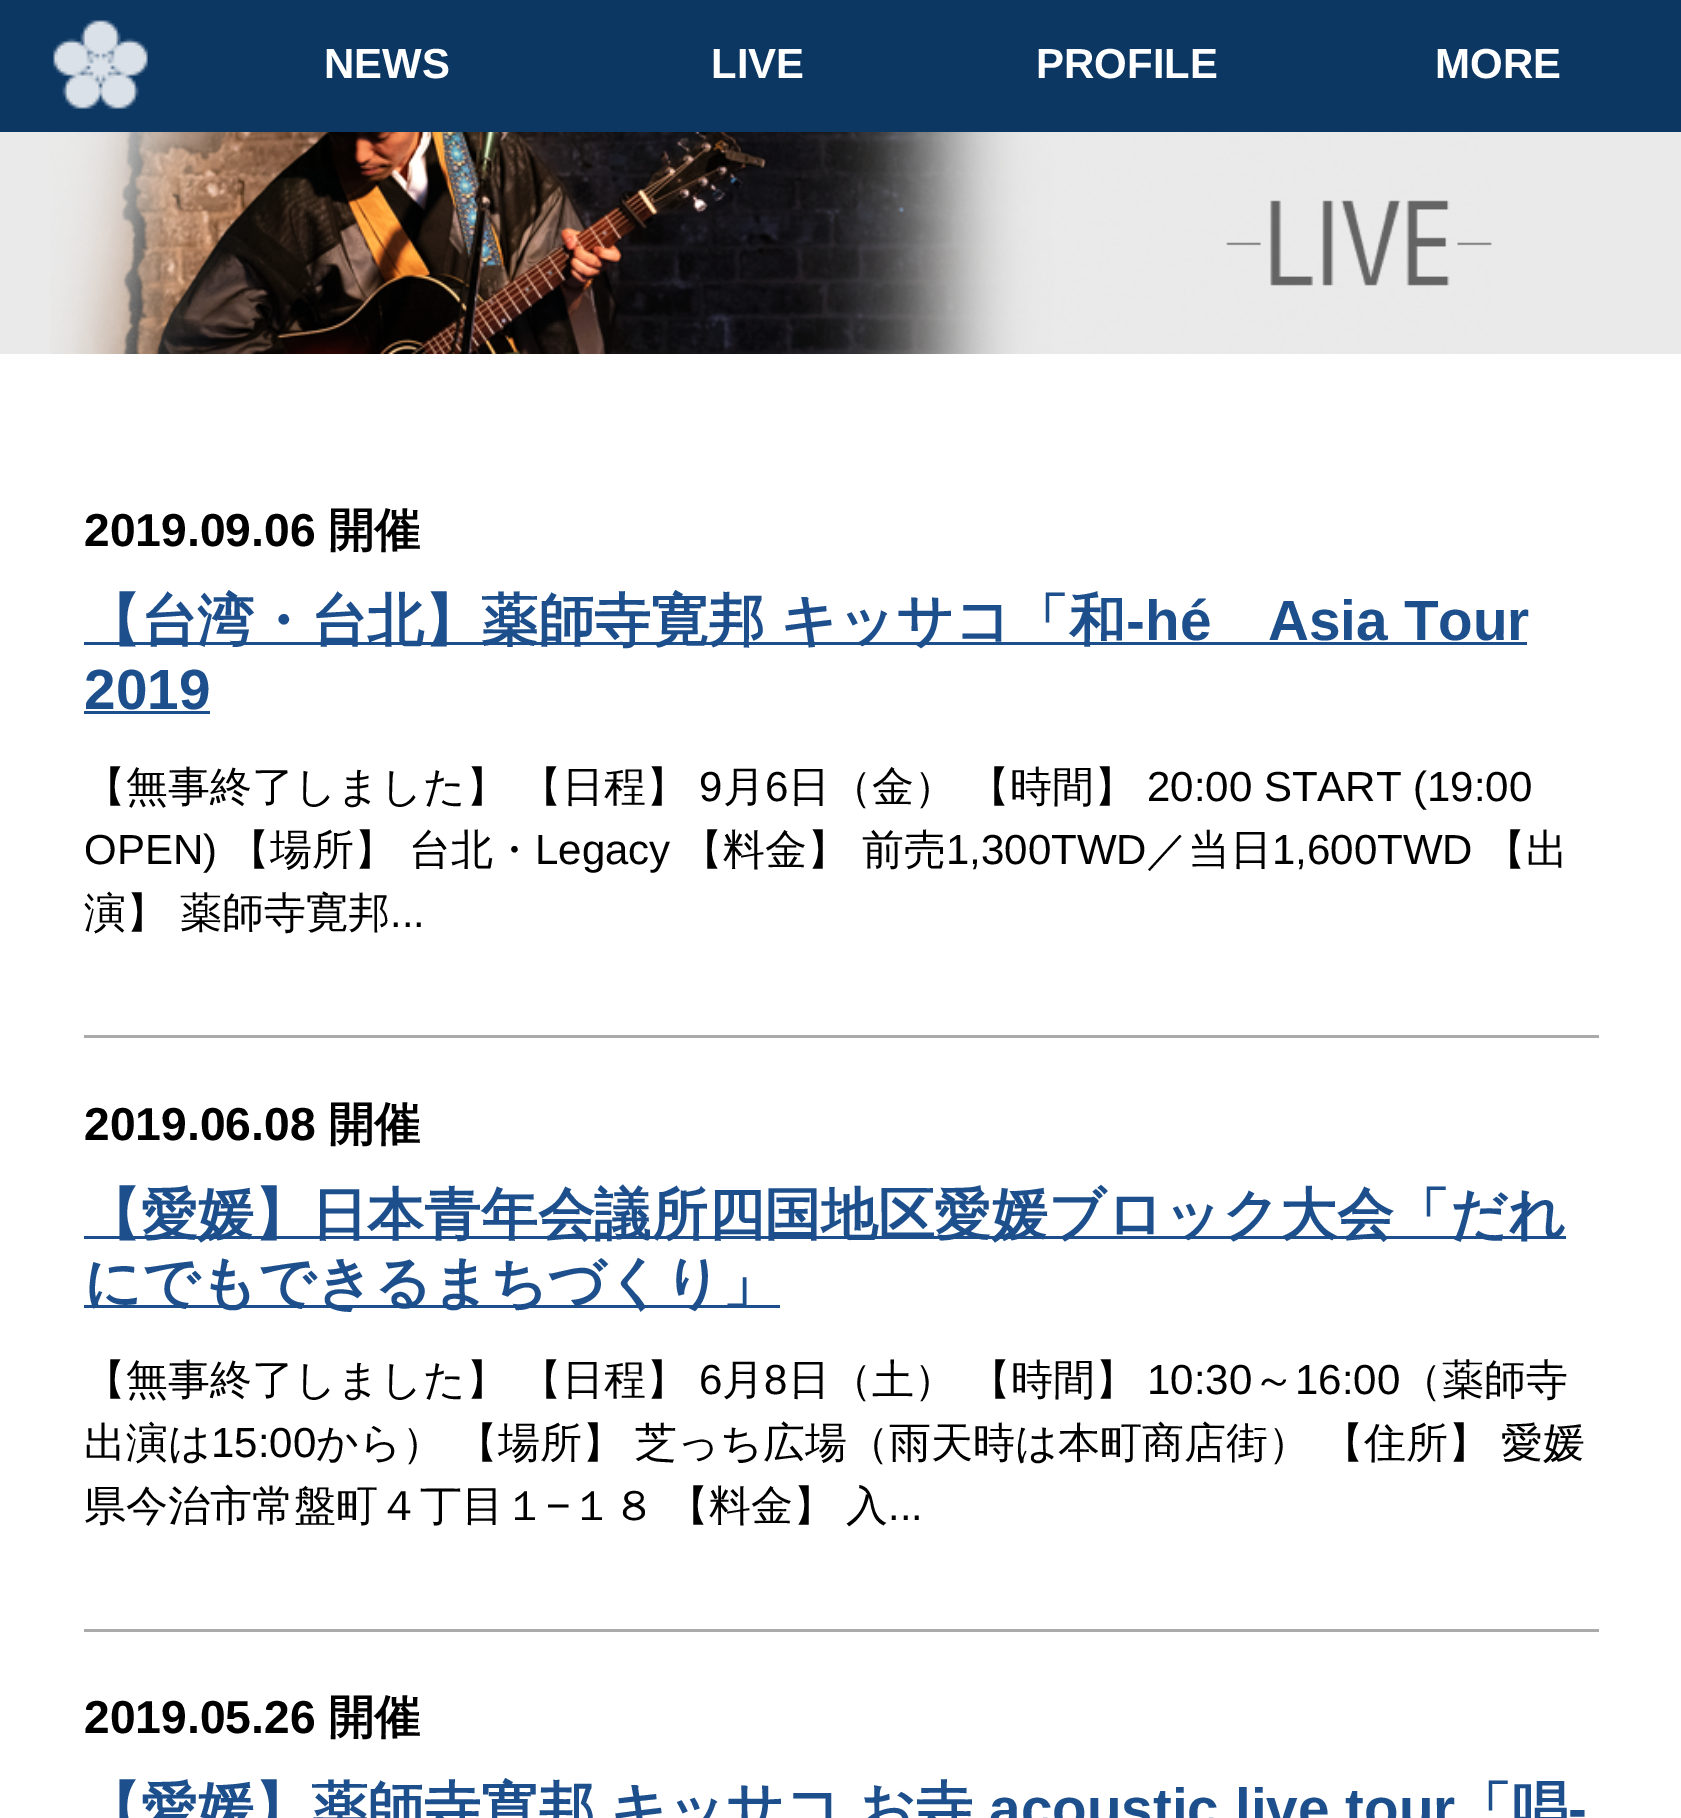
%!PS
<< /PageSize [1681 1818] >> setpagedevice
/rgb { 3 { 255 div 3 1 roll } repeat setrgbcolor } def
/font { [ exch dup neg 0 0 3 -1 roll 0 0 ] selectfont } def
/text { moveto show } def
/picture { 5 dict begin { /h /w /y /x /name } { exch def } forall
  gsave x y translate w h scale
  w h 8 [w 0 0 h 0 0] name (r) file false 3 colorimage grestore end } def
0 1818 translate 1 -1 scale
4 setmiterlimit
13 55 99 rgb
0 0 1681 1818 rectfill
(img_01.rgb) 53 20 95 89 picture
255 255 255 rgb
0 354 1681 1464 rectfill
234 234 234 rgb
0 132 1681 222 rectfill
(img_02.rgb) 50 132 1442 222 picture
170 170 170 rgb
84 1035 1515 3 rectfill
29 79 140 rgb
84 642 1443 3 rectfill
84 711 126 3 rectfill
170 170 170 rgb
84 1629 1515 3 rectfill
29 79 140 rgb
84 1236 1482 3 rectfill
84 1305 696 3 rectfill
/LiberationSans-Bold 42 font
255 255 255 rgb
(NEWS) 324 78 text
(LIVE) 711 78 text
(PROFILE) 1036 78 text
(MORE) 1435 78 text
/LiberationSans-Bold 46.25 font
0 0 0 rgb
(2019.09.06) 84 546 text
/WenQuanYiZenHei-Bold 46.25 font
(開催) 328 546 text
/WenQuanYiZenHei-Bold 56.7 font
29 79 140 rgb
(【台湾・台北】薬師寺寛邦) 84 640 text
(キッサコ「和) 780 640 text
/LiberationSans-Bold 56.7 font
(-hé) 1126 640 text
(Asia Tour) 1268 640 text
(2019) 84 709 text
/WenQuanYiZenHei-Medium 42 font
0 0 0 rgb
(【無事終了しました】) 84 801 text
(【日程】) 520 801 text
/LiberationSans-Regular 42 font
(9) 699 801 text
/WenQuanYiZenHei-Medium 42 font
(月) 723 801 text
/LiberationSans-Regular 42 font
(6) 765 801 text
/WenQuanYiZenHei-Medium 42 font
(日（金）) 788 801 text
(【時間】) 968 801 text
/LiberationSans-Regular 42 font
(20:00 START \(19:00) 1147 801 text
(OPEN\)) 84 864 text
/WenQuanYiZenHei-Medium 42 font
(【場所】 台北・) 228 864 text
/LiberationSans-Regular 42 font
(Legacy) 535 864 text
/WenQuanYiZenHei-Medium 42 font
(【料金】 前売) 681 864 text
/LiberationSans-Regular 42 font
(1,300TWD) 946 864 text
/WenQuanYiZenHei-Medium 42 font
(／当日) 1146 864 text
/LiberationSans-Regular 42 font
(1,600TWD) 1272 864 text
/WenQuanYiZenHei-Medium 42 font
(【出) 1484 864 text
84 927 moveto -1 0 32 (演】 薬師寺寛邦) widthshow
/LiberationSans-Regular 42 font
(...) 390 927 text
/LiberationSans-Bold 46.25 font
(2019.06.08) 84 1140 text
/WenQuanYiZenHei-Bold 46.25 font
(開催) 328 1140 text
/WenQuanYiZenHei-Bold 56.7 font
29 79 140 rgb
(【愛媛】日本青年会議所四国地区愛媛ブロック大会「だれ) 84 1234 text
(にでもできるまちづくり」) 84 1302 text
/WenQuanYiZenHei-Medium 42 font
0 0 0 rgb
(【無事終了しました】) 84 1394 text
(【日程】) 520 1394 text
/LiberationSans-Regular 42 font
(6) 699 1394 text
/WenQuanYiZenHei-Medium 42 font
(月) 722 1394 text
/LiberationSans-Regular 42 font
(8) 764 1394 text
/WenQuanYiZenHei-Medium 42 font
(日（土） 【時間】) 788 1394 text
/LiberationSans-Regular 42 font
(10:30) 1147 1394 text
/WenQuanYiZenHei-Medium 42 font
(～) 1253 1394 text
/LiberationSans-Regular 42 font
(16:00) 1295 1394 text
/WenQuanYiZenHei-Medium 42 font
(（薬師寺) 1400 1394 text
(出演は) 84 1457 text
/LiberationSans-Regular 42 font
(15:00) 211 1457 text
/WenQuanYiZenHei-Medium 42 font
316 1457 moveto -1 0 32 (から） 【場所】 芝っち広場（雨天時は本町商店街） 【住所】 愛媛) widthshow
(県今治市常盤町４丁目１) 84 1520 text
/LiberationSans-Regular 42 font
(−) 546 1520 text
/WenQuanYiZenHei-Medium 42 font
571 1520 moveto -1 0 32 (１８ 【料金】 入) widthshow
/LiberationSans-Regular 42 font
(...) 888 1520 text
/LiberationSans-Bold 46.25 font
(2019.05.26) 84 1733 text
/WenQuanYiZenHei-Bold 46.25 font
(開催) 328 1733 text
/WenQuanYiZenHei-Bold 56.7 font
29 79 140 rgb
(【愛媛】薬師寺寛邦) 84 1828 text
(キッサコ) 610 1828 text
(お寺) 858 1828 text
/LiberationSans-Bold 56.7 font
(acoustic live tour) 989 1828 text
/WenQuanYiZenHei-Bold 56.7 font
(「唱) 1455 1828 text
/LiberationSans-Bold 56.7 font
(-) 1568 1828 text
showpage
